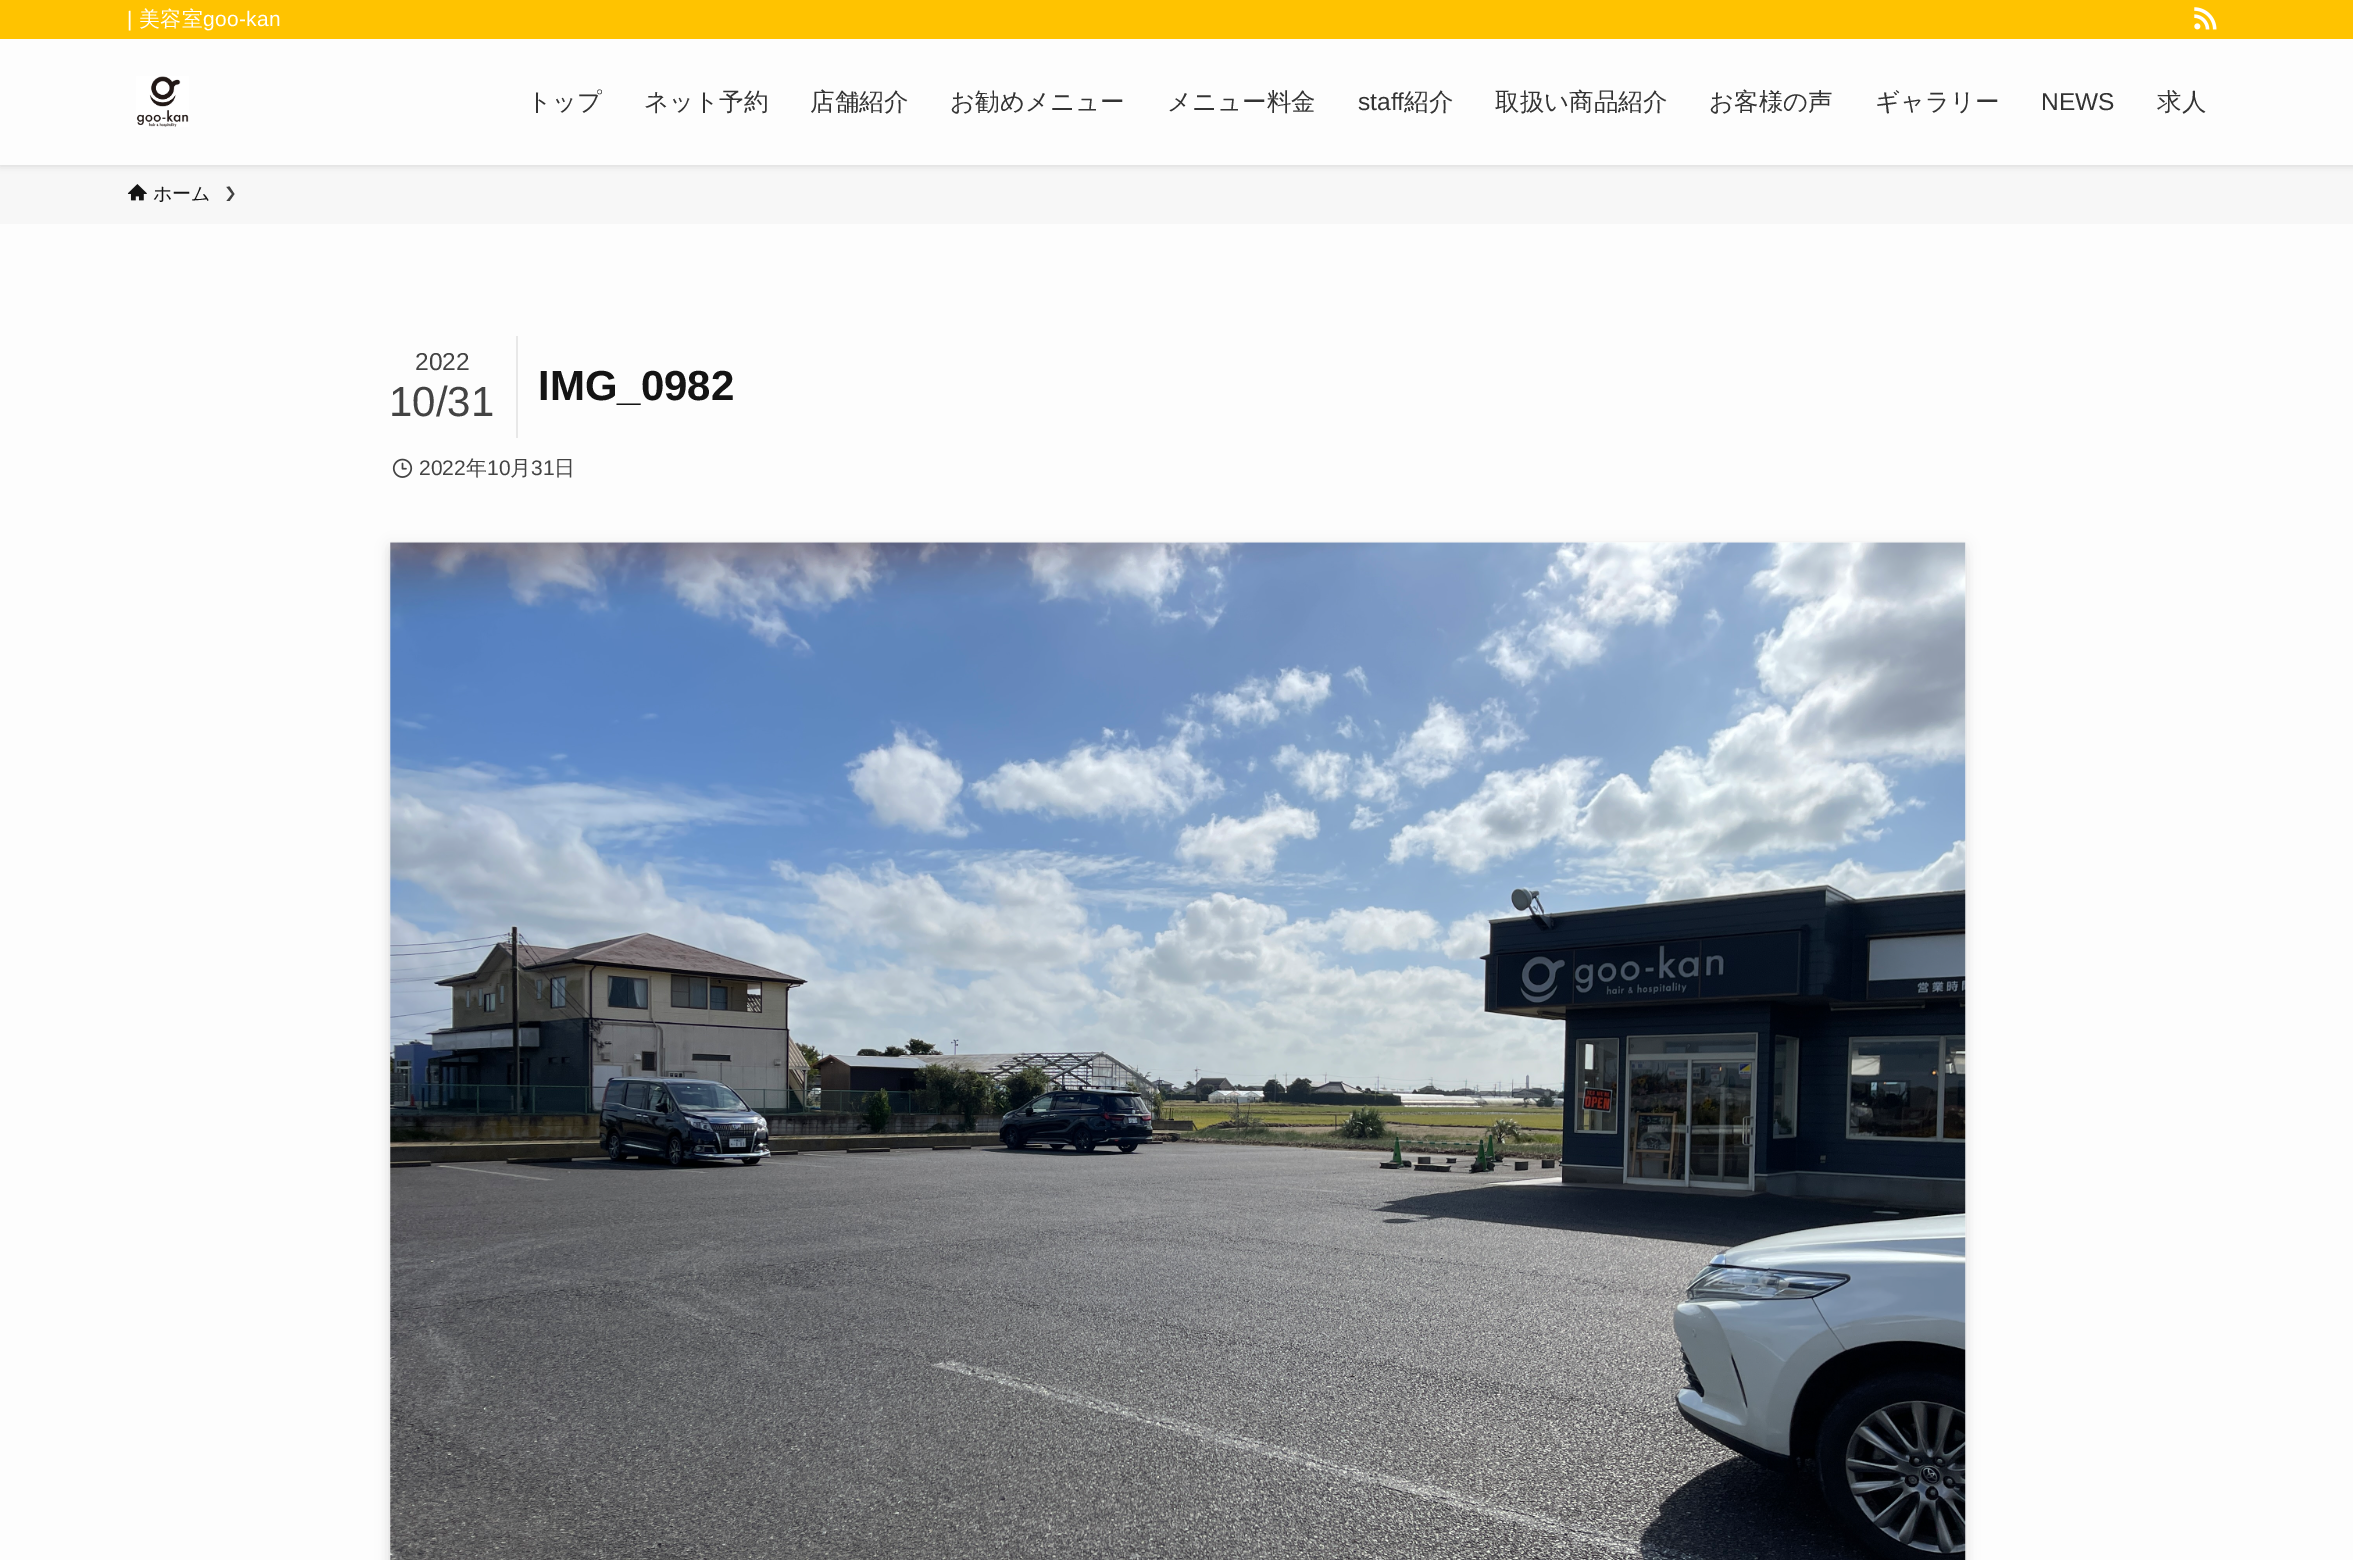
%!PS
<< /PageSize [2353 1560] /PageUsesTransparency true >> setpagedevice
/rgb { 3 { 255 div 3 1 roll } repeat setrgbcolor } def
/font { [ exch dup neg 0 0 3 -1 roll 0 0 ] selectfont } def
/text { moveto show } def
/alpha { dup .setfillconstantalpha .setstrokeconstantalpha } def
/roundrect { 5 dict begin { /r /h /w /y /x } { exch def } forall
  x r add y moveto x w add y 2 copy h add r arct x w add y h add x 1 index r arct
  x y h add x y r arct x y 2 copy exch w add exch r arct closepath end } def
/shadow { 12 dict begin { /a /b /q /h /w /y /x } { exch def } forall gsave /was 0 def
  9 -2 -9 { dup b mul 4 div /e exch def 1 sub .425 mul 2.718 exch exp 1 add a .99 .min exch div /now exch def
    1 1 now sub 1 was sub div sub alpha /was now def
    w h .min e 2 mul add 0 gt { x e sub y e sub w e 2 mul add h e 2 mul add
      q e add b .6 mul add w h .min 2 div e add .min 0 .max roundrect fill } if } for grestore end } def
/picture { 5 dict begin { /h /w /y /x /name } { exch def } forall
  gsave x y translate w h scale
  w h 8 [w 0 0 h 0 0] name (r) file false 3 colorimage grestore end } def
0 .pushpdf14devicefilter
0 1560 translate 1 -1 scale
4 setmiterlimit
253 253 253 rgb
0 0 2353 1560 rectfill
247 247 247 rgb
0 165 2353 59 rectfill
0 0 0 rgb
0 2 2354 164 0 3.5 0.12 shadow
253 253 253 rgb
0 39 2353 126 rectfill
255 195 0 rgb
0 0 2353 39 rectfill
(img_01.rgb) 2194 7 23 23 picture
(img_02.rgb) 136 76 53 51 picture
(img_03.rgb) 127 184 20 17 picture
65 65 65 rgb
229.5 186.5 moveto -3 0.5 rlineto 5.5 7 rlineto -5.5 7 rlineto 3 0 rlineto 5 -7 rlineto closepath fill
232 232 232 rgb
516 336 2 102 rectfill
(img_04.rgb) 392 458 21 20 picture
0 0 0 rgb
397 557 1561 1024 0 7 0.2 shadow
390 546 1575 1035 0 7 0.1 shadow
(img_05.rgb) 390 542 1576 1018 picture
/LiberationSans-Regular 21 font
255 255 255 rgb
127 26 moveto 0.25 0 (|) ashow
/WenQuanYiZenHei-Medium 21 font
139 26 moveto 0.25 0 (美容室) ashow
/LiberationSans-Regular 21 font
203 26 moveto 0.25 0 (goo-kan) ashow
/WenQuanYiZenHei-Medium 24.5 font
51 51 51 rgb
(トップ) 527 110 text
(ネット予約) 644 110 text
(店舗紹介) 810 110 text
(お勧めメニュー) 950 110 text
(メニュー料金) 1167 110 text
/LiberationSans-Regular 24.5 font
(staff) 1358 110 text
/WenQuanYiZenHei-Medium 24.5 font
(紹介) 1404 110 text
(取扱い商品紹介) 1495 110 text
(お客様の声) 1709 110 text
(ギャラリー) 1875 110 text
/LiberationSans-Regular 24.5 font
(NEWS) 2041 110 text
/WenQuanYiZenHei-Medium 24.5 font
(求人) 2157 110 text
/WenQuanYiZenHei-Medium 19 font
20 20 20 rgb
(ホーム) 153 200 text
/LiberationSans-Regular 24.5 font
67 67 67 rgb
(2022) 415 370 text
/LiberationSans-Regular 42 font
(10/31) 389 416 text
/LiberationSans-Bold 42 font
20 20 20 rgb
(IMG_0982) 538 400 text
/LiberationSans-Regular 21 font
67 67 67 rgb
(2022) 419 475 text
/WenQuanYiZenHei-Medium 21 font
(年) 466 475 text
/LiberationSans-Regular 21 font
(10) 487 475 text
/WenQuanYiZenHei-Medium 21 font
(月) 510 475 text
/LiberationSans-Regular 21 font
(31) 531 475 text
/WenQuanYiZenHei-Medium 21 font
(日) 554 475 text
.poppdf14devicefilter showpage
